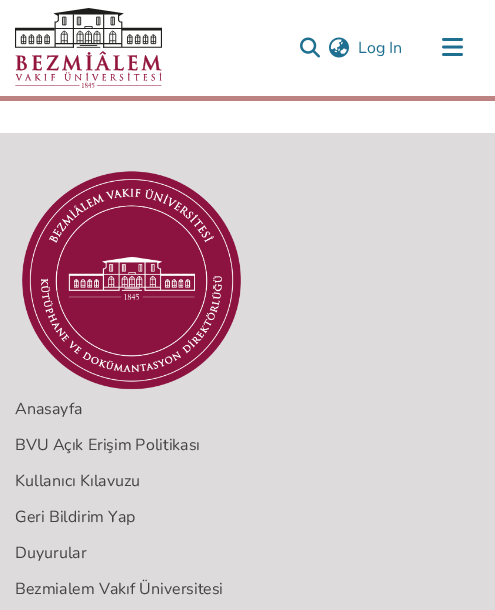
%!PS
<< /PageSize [495 610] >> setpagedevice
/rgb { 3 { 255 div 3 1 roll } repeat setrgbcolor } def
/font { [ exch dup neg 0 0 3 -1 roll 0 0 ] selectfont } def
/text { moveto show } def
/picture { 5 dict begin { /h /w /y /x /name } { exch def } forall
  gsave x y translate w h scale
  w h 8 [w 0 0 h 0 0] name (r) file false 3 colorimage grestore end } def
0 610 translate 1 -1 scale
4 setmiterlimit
255 255 255 rgb
0 0 495 610 rectfill
189 131 131 rgb
0 96 495 5 rectfill
(img_01.rgb) 15 8 147 80 picture
(img_02.rgb) 300 37 20 21 picture
(img_03.rgb) 329 37 20 21 picture
(img_04.rgb) 442 38 21 18 picture
221 219 220 rgb
0 133 495 477 rectfill
(img_05.rgb) 22 171 219 219 picture
/Nunito-Regular 16 font
30 111 144 rgb
(Log In) 358 53 text
68 68 68 rgb
(Anasayfa) 15 414 text
(BVU Açık Erişim Politikası) 15 450 text
(Kullanıcı Kılavuzu) 15 486 text
(Geri Bildirim Yap) 15 522 text
(Duyurular) 15 558 text
(Bezmialem Vakıf Üniversitesi) 15 594 text
showpage
